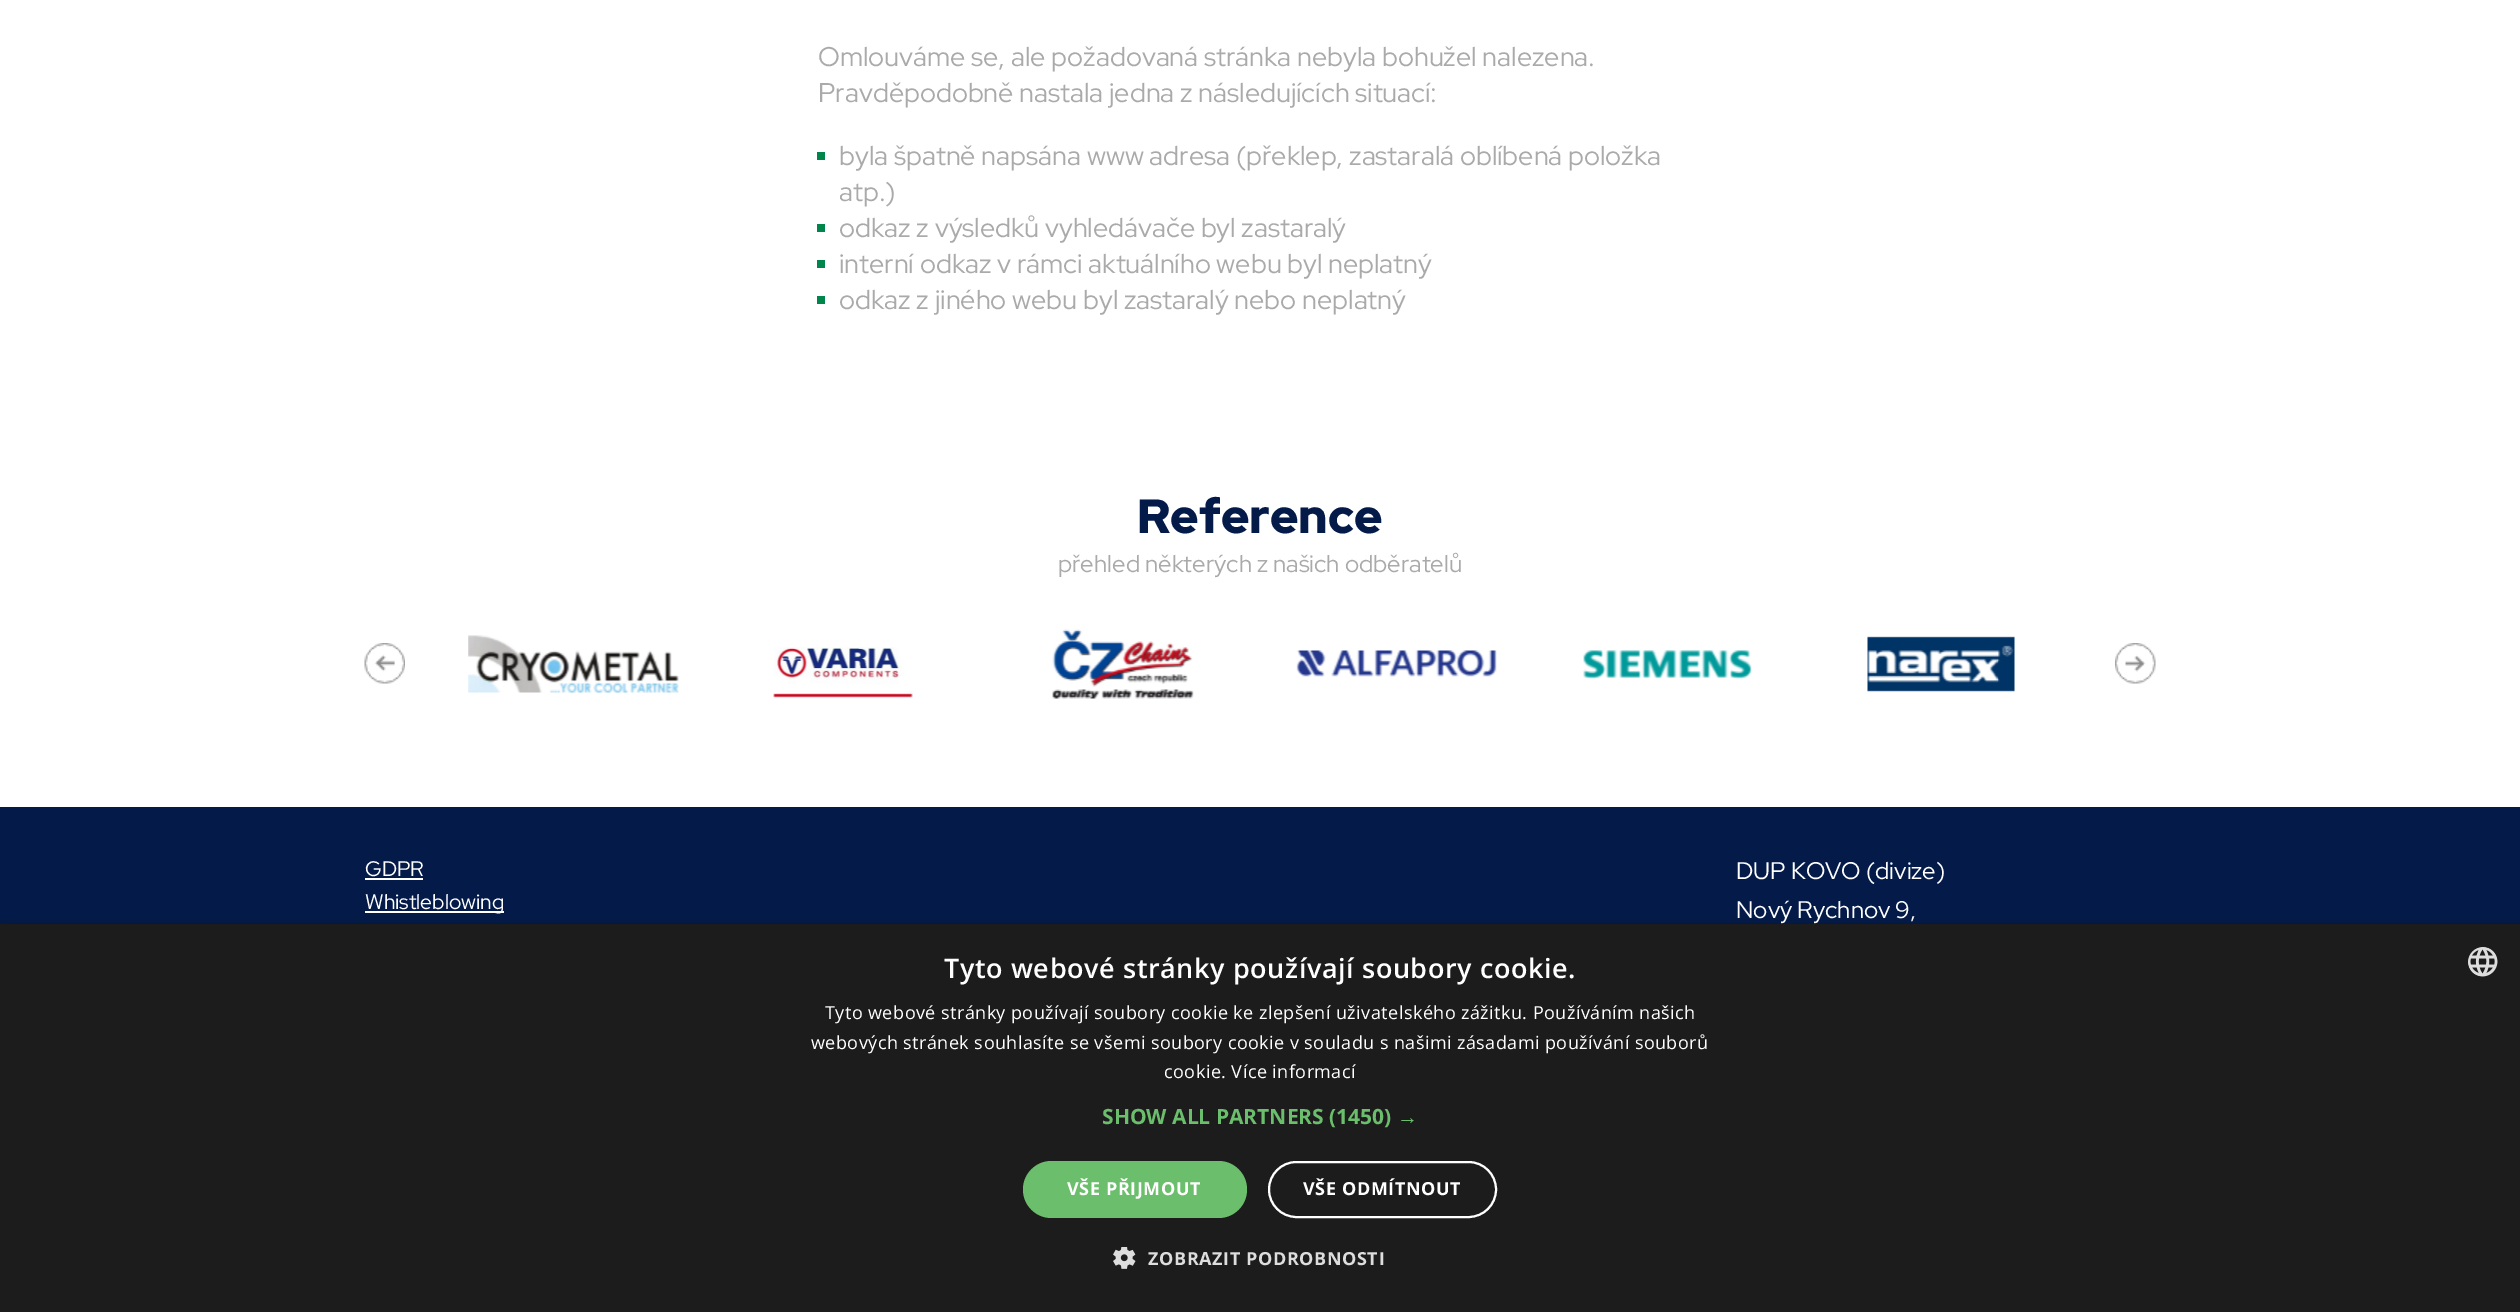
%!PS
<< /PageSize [2520 1312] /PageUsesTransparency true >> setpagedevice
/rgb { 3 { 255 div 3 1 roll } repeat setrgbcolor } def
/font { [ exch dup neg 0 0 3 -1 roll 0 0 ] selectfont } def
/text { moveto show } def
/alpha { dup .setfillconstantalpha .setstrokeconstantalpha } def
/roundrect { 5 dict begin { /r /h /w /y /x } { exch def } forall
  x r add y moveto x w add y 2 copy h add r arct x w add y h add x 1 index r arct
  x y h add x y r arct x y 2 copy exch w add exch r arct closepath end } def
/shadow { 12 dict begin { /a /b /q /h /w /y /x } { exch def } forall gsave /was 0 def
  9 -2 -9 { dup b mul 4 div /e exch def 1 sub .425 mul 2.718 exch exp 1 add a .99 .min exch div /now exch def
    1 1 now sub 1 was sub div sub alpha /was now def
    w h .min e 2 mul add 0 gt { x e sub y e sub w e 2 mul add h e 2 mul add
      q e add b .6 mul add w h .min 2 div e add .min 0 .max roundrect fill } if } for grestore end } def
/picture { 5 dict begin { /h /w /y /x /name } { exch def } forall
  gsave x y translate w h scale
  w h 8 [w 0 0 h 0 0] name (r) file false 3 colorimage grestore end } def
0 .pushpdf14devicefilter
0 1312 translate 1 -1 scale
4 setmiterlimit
255 255 255 rgb
0 0 2520 1312 rectfill
0 134 75 rgb
817 152 8 8 rectfill
817 224 8 8 rectfill
817 260 8 8 rectfill
817 296 8 8 rectfill
(img_01.rgb) 364 643 41 41 picture
(img_02.rgb) 468 635 211 58 picture
(img_03.rgb) 773 647 140 51 picture
(img_04.rgb) 1052 629 142 70 picture
(img_05.rgb) 1296 650 201 27 picture
(img_06.rgb) 1583 650 169 30 picture
(img_07.rgb) 1867 636 148 56 picture
(img_08.rgb) 2115 643 41 41 picture
4 27 74 rgb
0 807 2520 117 rectfill
255 255 255 rgb
365 878 58 2 rectfill
365 911 139 2 rectfill
0 0 0 rgb
2 927 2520 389 0 6 0.35 shadow
28 28 28 rgb
0 924 2520 388 rectfill
(img_09.rgb) 2468 947 30 30 picture
107 190 107 rgb
1023 1161 224 57 28.5 roundrect fill
255 255 255 rgb
2 setlinewidth
1269 1162 227 55 27.5 roundrect stroke
(img_10.rgb) 1113 1247 23 22 picture
/RedHatDisplay-Regular 27 font
170 170 170 rgb
(Omlouváme se, ale požadovaná stránka nebyla bohužel nalezena.) 818 66 text
(Pravděpodobně nastala jedna z následujících situací:) 818 102 text
(byla špatně napsána www adresa \(překlep, zastaralá oblíbená položka) 839 165 text
(atp.\)) 839 201 text
(odkaz z výsledků vyhledávače byl zastaralý) 839 237 text
(interní odkaz v rámci aktuálního webu byl neplatný) 839 273 text
(odkaz z jiného webu byl zastaralý nebo neplatný) 839 309 text
/RedHatDisplay-Black 48 font
4 27 74 rgb
(Reference) 1137 533 text
/RedHatDisplay-Regular 24 font
170 170 170 rgb
(přehled některých z našich odběratelů) 1058 572 text
/RedHatDisplay-Regular 21 font
255 255 255 rgb
(GDPR) 365 876 text
(Whistleblowing) 365 909 text
/RedHatDisplay-Regular 24 font
(DUP KOVO \(divize\)) 1736 879 text
(Nový Rychnov 9,) 1736 918 text
/OpenSans-SemiBold 27 font
944 978 moveto 0.6 0 (Tyto webové stránky používají soubory cookie.) ashow
/OpenSans-Regular 18 font
825 1019 moveto 0.45 0 (Tyto webové stránky používají soubory cookie ke zlepšení uživatelského zážitku. Používáním našich) ashow
811 1049 moveto 0.45 0 (webových stránek souhlasíte se všemi soubory cookie v souladu s našimi zásadami používání souborů) ashow
1164 1078 moveto 0.45 0 (cookie. Více informací) ashow
/OpenSans-Bold 21 font
107 190 107 rgb
(SHOW ALL PARTNERS \(1450\)) 1102 1124 text
/LiberationSans-Bold 21 font
(→) 1397 1124 text
/OpenSans-Bold 18 font
255 255 255 rgb
1067 1195 moveto 0.6 0 (VŠE PŘIJMOUT) ashow
1303 1195 moveto 0.6 0 (VŠE ODMÍTNOUT) ashow
221 221 221 rgb
1148 1265 moveto 0.6 0 (ZOBRAZIT PODROBNOSTI) ashow
.poppdf14devicefilter showpage
